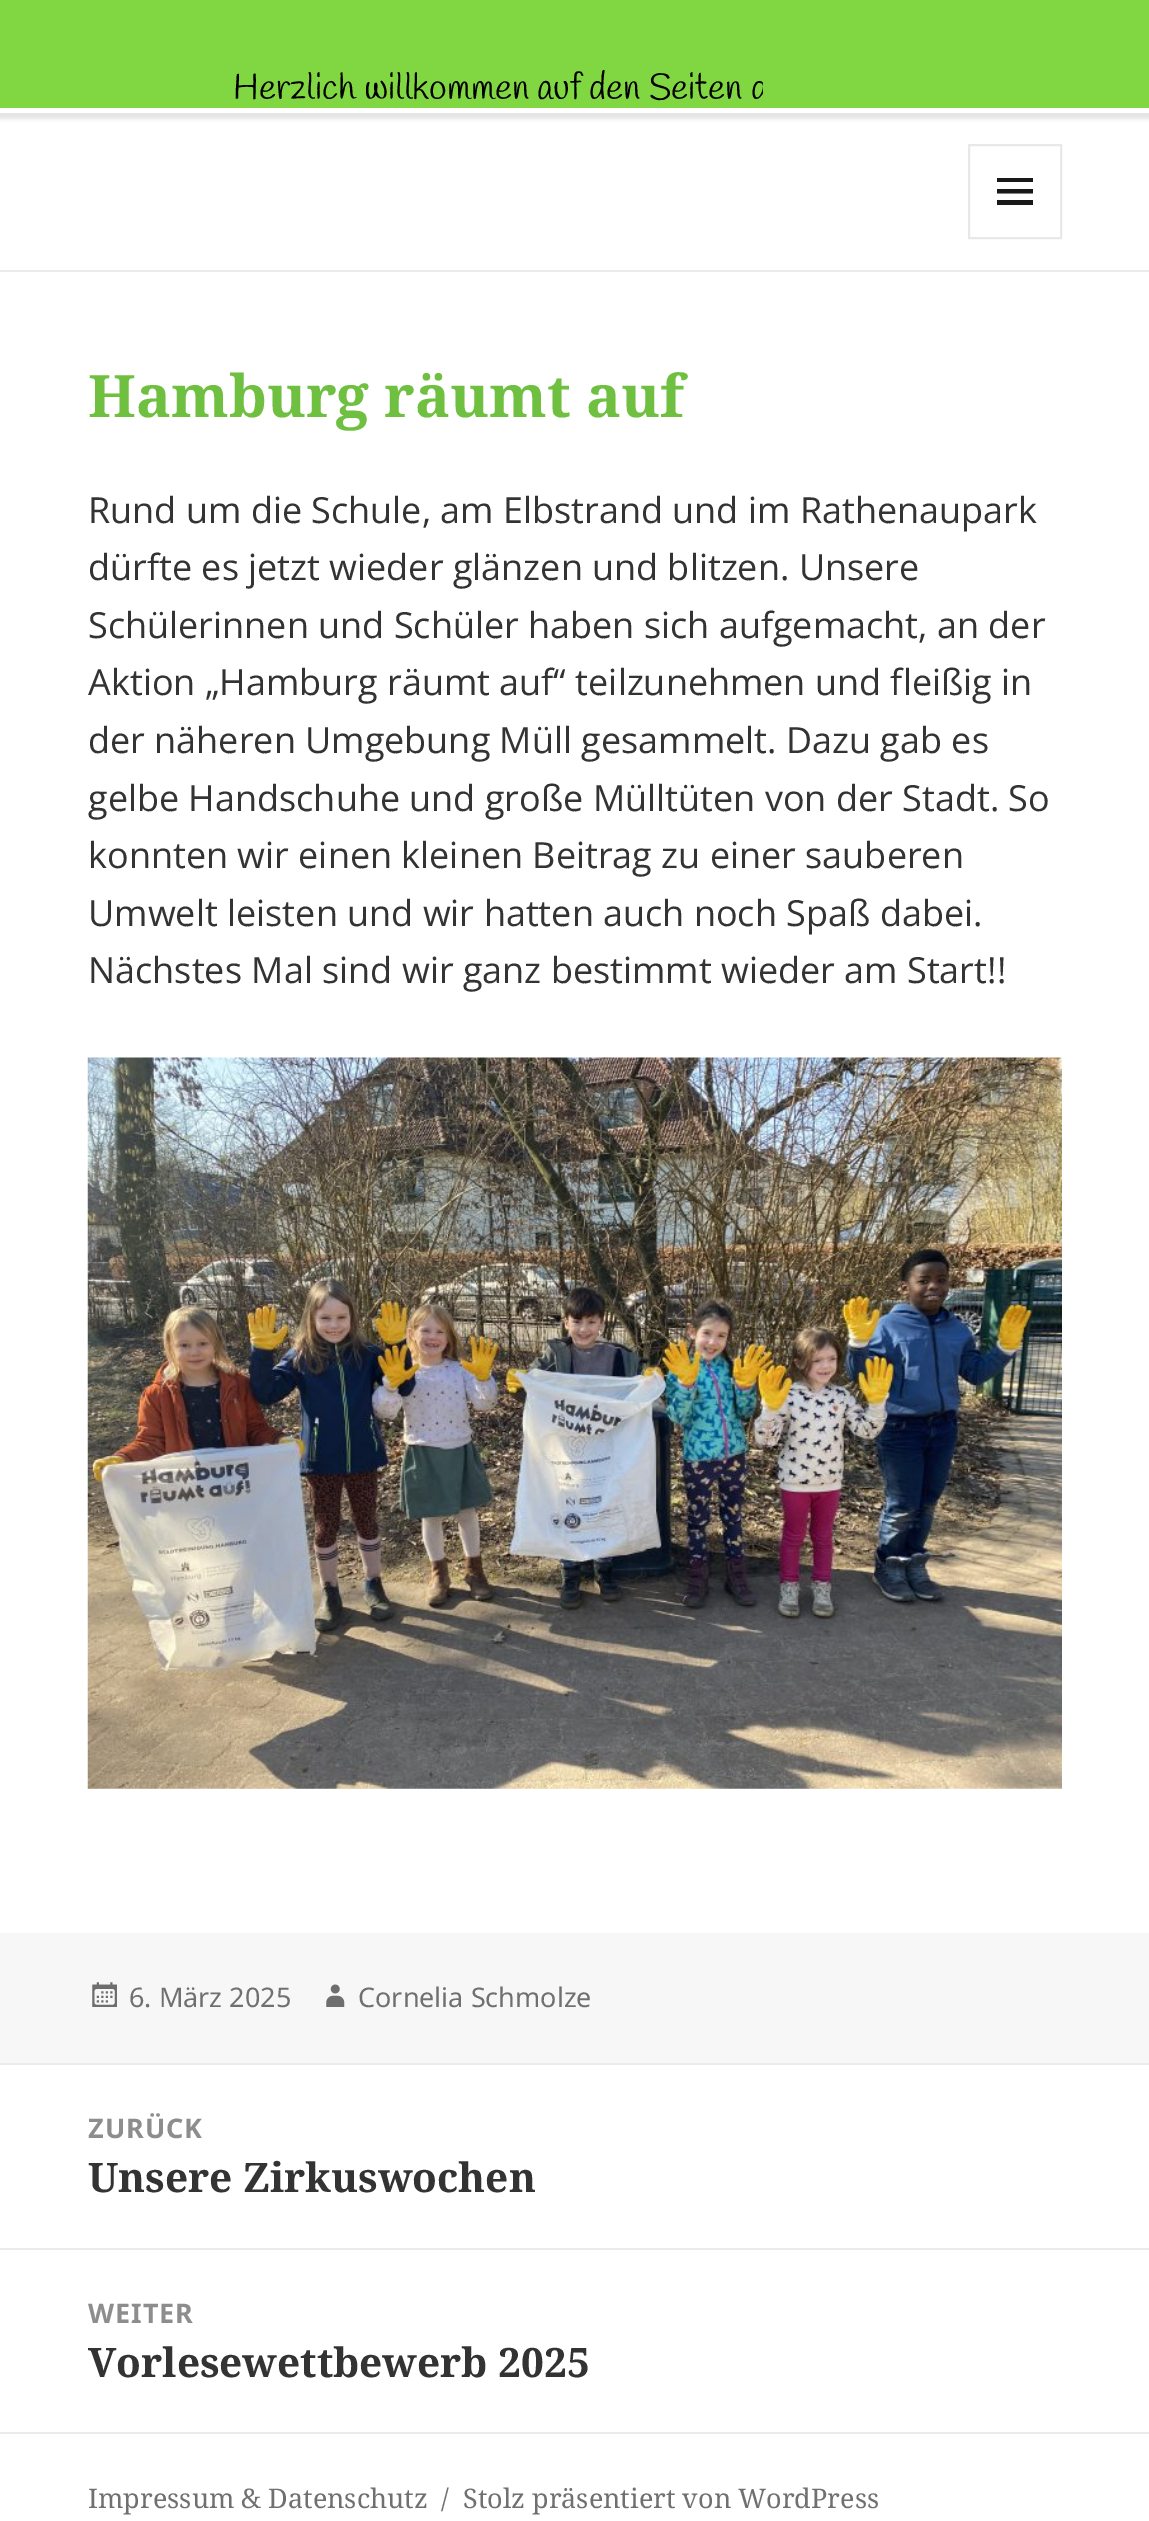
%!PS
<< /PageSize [1149 2521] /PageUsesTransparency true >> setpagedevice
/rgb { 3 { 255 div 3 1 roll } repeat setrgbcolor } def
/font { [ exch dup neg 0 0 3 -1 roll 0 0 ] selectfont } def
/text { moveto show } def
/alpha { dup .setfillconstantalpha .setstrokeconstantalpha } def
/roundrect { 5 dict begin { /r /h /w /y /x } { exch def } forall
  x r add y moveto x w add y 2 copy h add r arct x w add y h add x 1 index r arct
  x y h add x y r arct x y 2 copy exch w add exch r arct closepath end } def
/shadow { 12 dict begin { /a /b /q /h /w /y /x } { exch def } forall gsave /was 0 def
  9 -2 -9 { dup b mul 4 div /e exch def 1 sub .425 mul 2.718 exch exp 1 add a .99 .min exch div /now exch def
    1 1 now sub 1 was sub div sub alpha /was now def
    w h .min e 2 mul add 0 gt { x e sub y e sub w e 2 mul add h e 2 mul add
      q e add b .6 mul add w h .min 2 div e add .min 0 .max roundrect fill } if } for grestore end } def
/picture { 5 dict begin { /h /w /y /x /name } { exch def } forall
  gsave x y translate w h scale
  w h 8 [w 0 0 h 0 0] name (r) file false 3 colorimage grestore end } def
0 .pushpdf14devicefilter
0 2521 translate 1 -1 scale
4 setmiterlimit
255 255 255 rgb
0 0 1149 2521 rectfill
227 227 227 rgb
-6 -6 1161 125 0 2 1 shadow
129 215 66 rgb
0 0 1149 108 rectfill
255 255 255 rgb
0 108 1149 5 rectfill
235 235 235 rgb
0 270 1149 2 rectfill
232 232 232 rgb
2 setlinewidth
969 145 92 93 rectstroke
25 25 25 rgb
997 205 moveto 0 -5 rlineto 36 0 rlineto 0 5 rlineto closepath 997 178 moveto 36 0 rlineto 0 4 rlineto -36 0 rlineto closepath 997 193.5 moveto 0 -4.5 rlineto 36 0 rlineto 0 4.5 rlineto closepath fill
(img_01.rgb) 87 1057 975 732 picture
247 247 247 rgb
0 1933 1149 130 rectfill
(img_02.rgb) 92 1982 25 25 picture
(img_03.rgb) 326 1984 19 23 picture
235 235 235 rgb
0 2063 1149 2 rectfill
0 2248 1149 2 rectfill
0 2432 1149 2 rectfill
gsave
234 61 529 58 rectclip
/Handlee-Regular 36 font
0 0 0 rgb
(Herzlich willkommen auf den Seiten d) 233 99 text
grestore
/NotoSerif-Bold 58.5 font
111 191 64 rgb
(Hamburg räumt auf) 88 417 text
/OpenSans-Regular 36 font
51 51 51 rgb
(Rund um die Schule, am Elbstrand und im Rathenaupark) 88 523 text
(dürfte es jetzt wieder glänzen und blitzen. Unsere) 88 580 text
(Schülerinnen und Schüler haben sich aufgemacht, an der) 88 638 text
(Aktion „Hamburg räumt auf“ teilzunehmen und fleißig in) 88 695 text
(der näheren Umgebung Müll gesammelt. Dazu gab es) 88 753 text
(gelbe Handschuhe und große Mülltüten von der Stadt. So) 88 811 text
(konnten wir einen kleinen Beitrag zu einer sauberen) 88 868 text
(Umwelt leisten und wir hatten auch noch Spaß dabei.) 88 926 text
(Nächstes Mal sind wir ganz bestimmt wieder am Start!!) 88 983 text
/NotoSans-Regular 27 font
112 112 112 rgb
(6. März 2025) 129 2007 text
(Cornelia Schmolze) 358 2007 text
/NotoSans-Bold 27 font
141 141 141 rgb
88 2138 moveto 1 0 (ZURÜCK) ashow
/NotoSerif-Bold 40.5 font
51 51 51 rgb
(Unsere Zirkuswochen) 88 2192 text
/NotoSans-Bold 27 font
141 141 141 rgb
88 2323 moveto 1 0 (WEITER) ashow
/NotoSerif-Bold 40.5 font
51 51 51 rgb
(Vorlesewettbewerb 2025) 88 2377 text
/NotoSerif-Regular 27 font
112 112 112 rgb
(Impressum & Datenschutz) 88 2508 text
(/) 441 2508 text
(Stolz präsentiert von WordPress) 463 2508 text
.poppdf14devicefilter showpage
